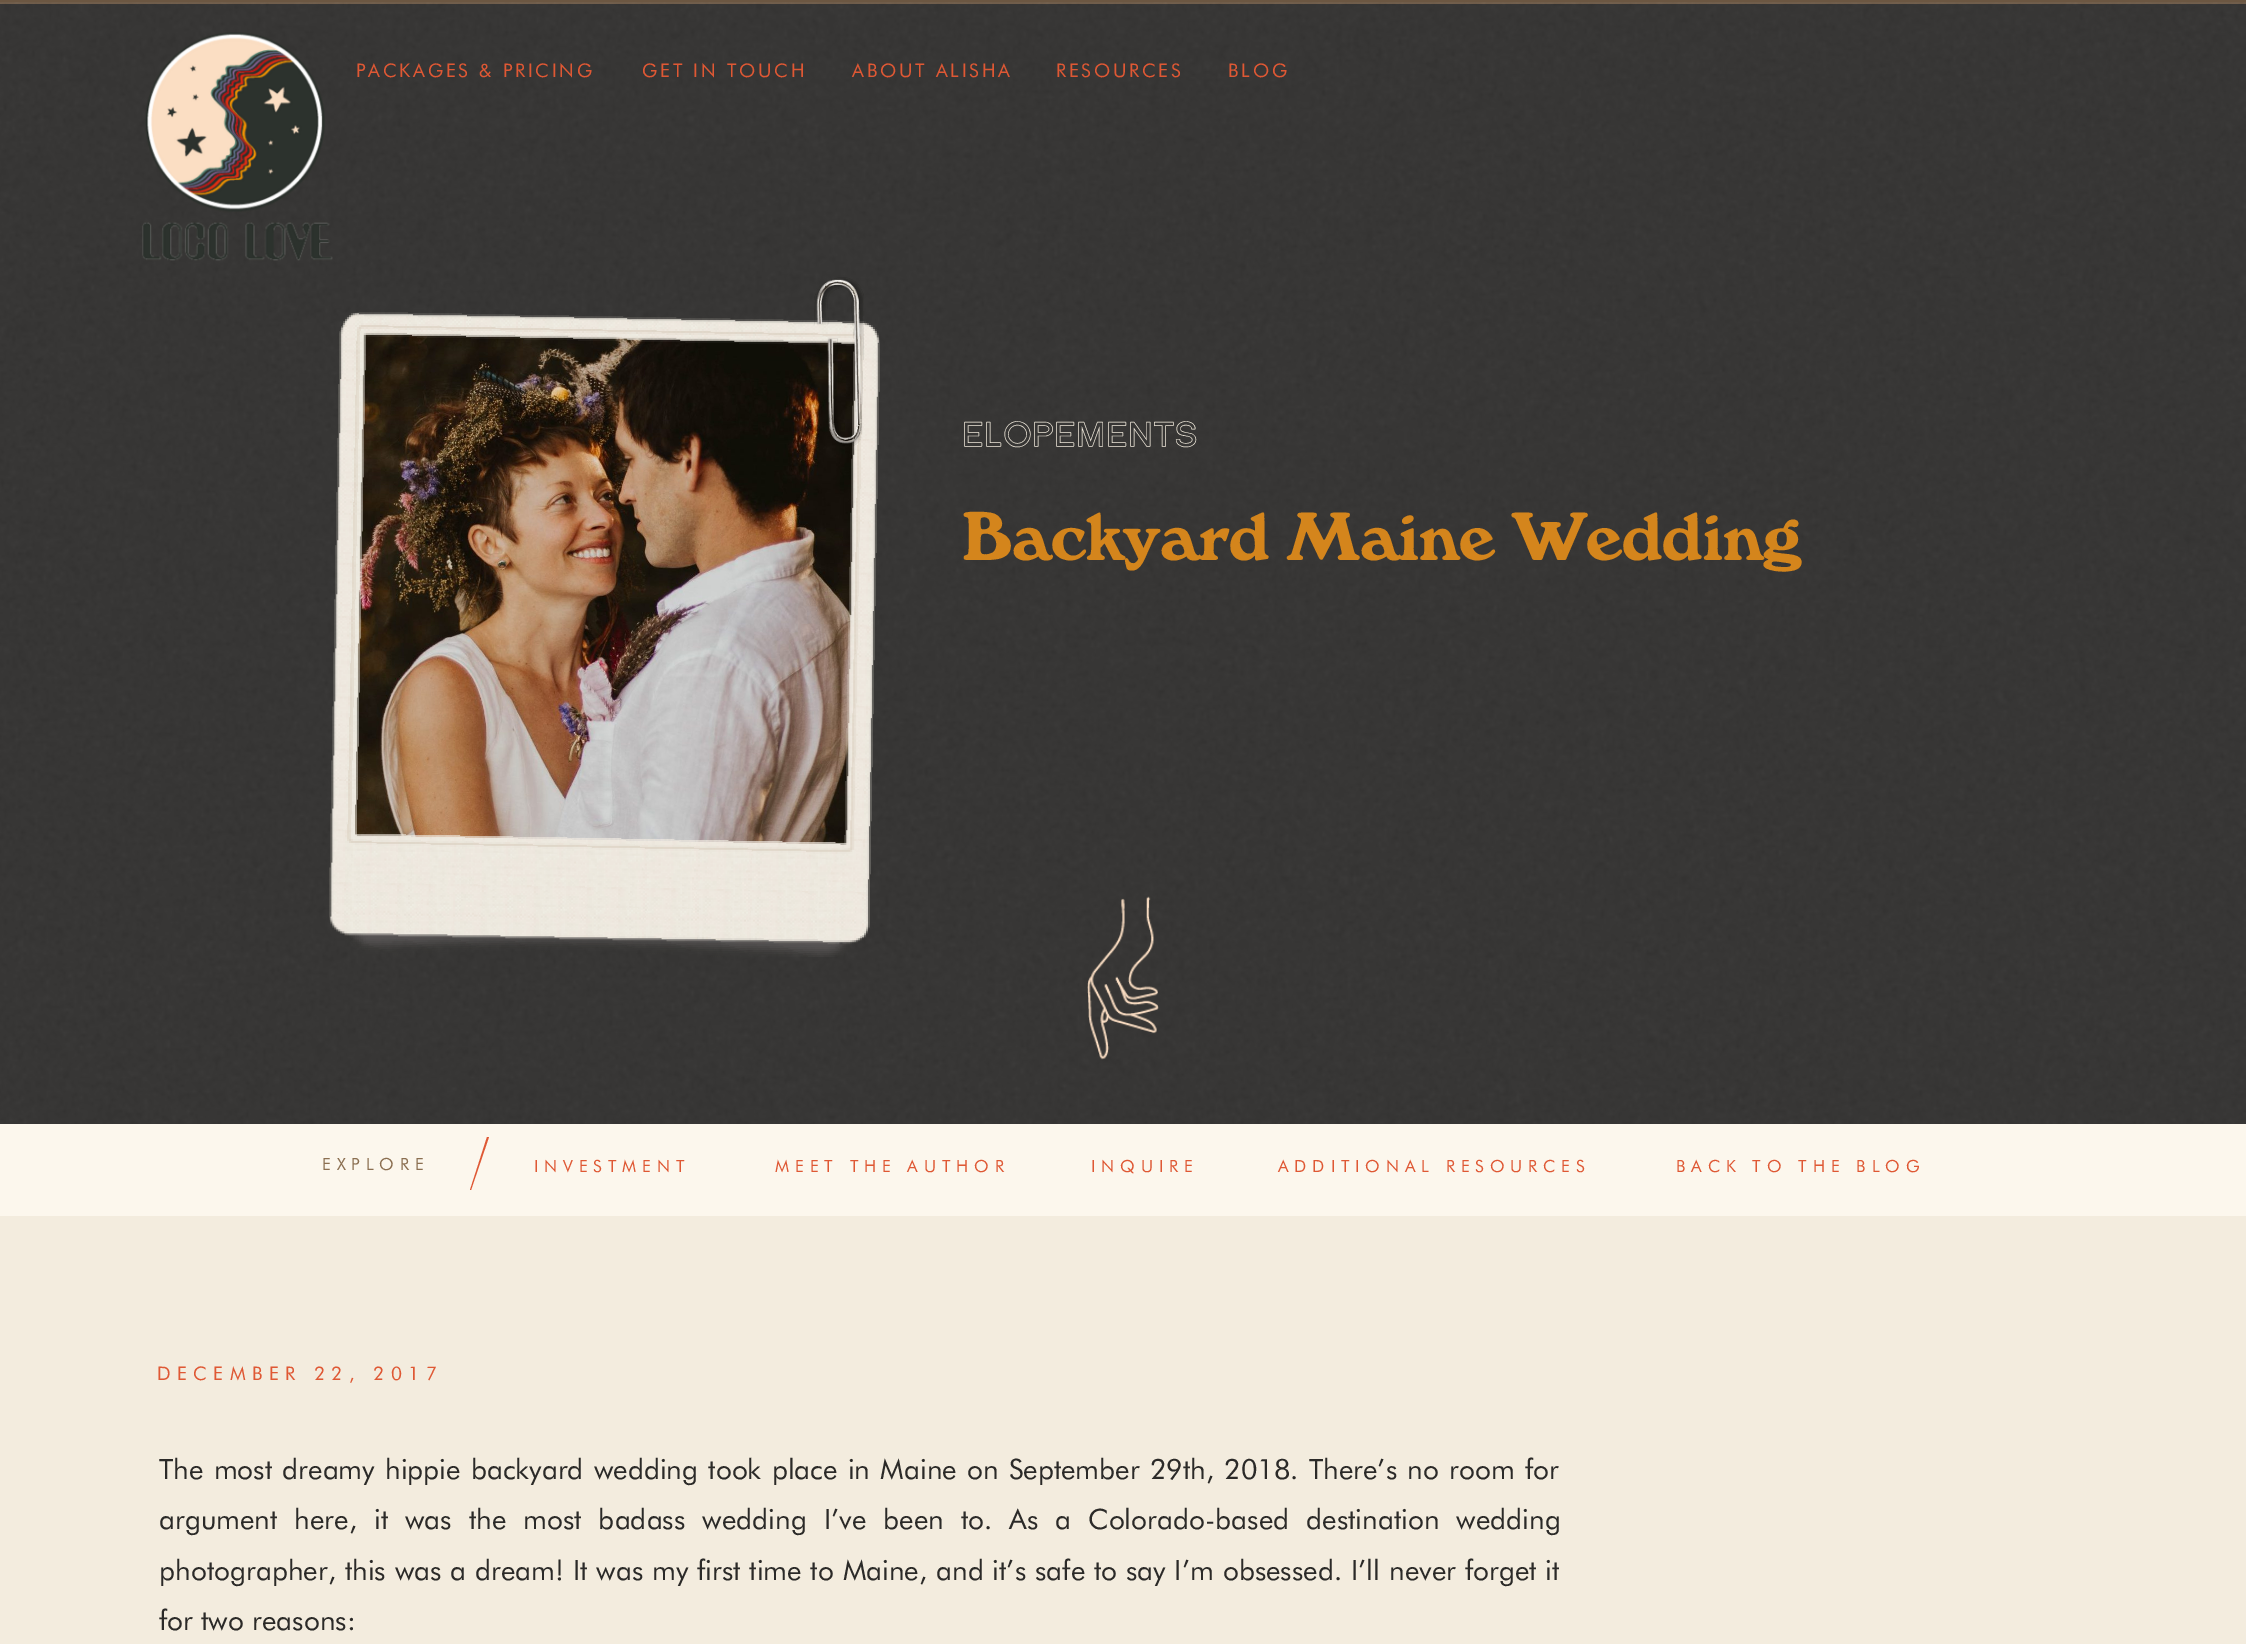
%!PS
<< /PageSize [2246 1644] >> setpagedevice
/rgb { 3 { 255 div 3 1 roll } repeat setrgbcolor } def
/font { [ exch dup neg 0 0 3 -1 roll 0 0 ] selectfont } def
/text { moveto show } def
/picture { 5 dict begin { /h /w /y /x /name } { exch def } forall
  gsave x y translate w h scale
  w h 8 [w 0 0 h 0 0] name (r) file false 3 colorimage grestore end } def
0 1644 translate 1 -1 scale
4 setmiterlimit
108 87 66 rgb
0 0 2246 1644 rectfill
43 42 40 rgb
0 4 2246 1120 rectfill
(img_02.rgb) 0 2 2246 1122 picture
(img_01.rgb) 142 32 191 229 picture
(img_05.rgb) 355 332 502 513 picture
(img_04.rgb) 329 312 551 645 picture
(img_03.rgb) 814 277 50 169 picture
(img_06.rgb) 1087 896 72 164 picture
252 247 237 rgb
0 1124 2246 92 rectfill
223 88 52 rgb
470 1190 moveto 17 -53 rlineto 2 0 rlineto -18 53 rlineto closepath fill
243 236 222 rgb
0 1216 2246 428 rectfill
/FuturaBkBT-Regular 18.75 font
223 88 52 rgb
356 77 moveto 2.8 0 (PACKAGES & PRICING) ashow
642 77 moveto 2.8 0 (GET IN TOUCH) ashow
852 77 moveto 2.8 0 (ABOUT ALISHA) ashow
1056 77 moveto 2.8 0 (RESOURCES) ashow
1228 77 moveto 2.8 0 (BLOG) ashow
/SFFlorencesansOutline-Regular 33.75 font
243 236 222 rgb
(ELOPEMENTS) 962 446 text
/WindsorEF-Bold 71.1 font
212 133 28 rgb
(Backyard Maine Wedding) 962 560 text
/FuturaBkBT-Regular 16.8 font
139 111 81 rgb
322 1170 moveto 5.9 0 (EXPLORE) ashow
223 88 52 rgb
534 1172 moveto 5.9 0 (INVESTMENT) ashow
775 1172 moveto 5.9 0 (MEET THE AUTHOR) ashow
1091 1172 moveto 5.9 0 (INQUIRE) ashow
1278 1172 moveto 5.9 0 (ADDITIONAL RESOURCES) ashow
1676 1172 moveto 5.9 0 (BACK TO THE BLOG) ashow
/FuturaBkBT-Regular 18.75 font
157 1380 moveto 6.5 0 (DECEMBER 22, 2017) ashow
/FuturaBkBT-Regular 28.05 font
43 42 40 rgb
159 1479 moveto 2 0 32 (The most dreamy hippie backyard wedding took place in Maine on September 29th, 2018. There’s no room for) widthshow
159 1529 moveto 8.75 0 32 (argument here, it was the most badass wedding I’ve been to. As a Colorado-based destination wedding) widthshow
159 1580 moveto 0.6 0 32 (photographer, this was a dream! It was my first time to Maine, and it’s safe to say I’m obsessed. I’ll never forget it) widthshow
(for two reasons:) 159 1630 text
showpage
